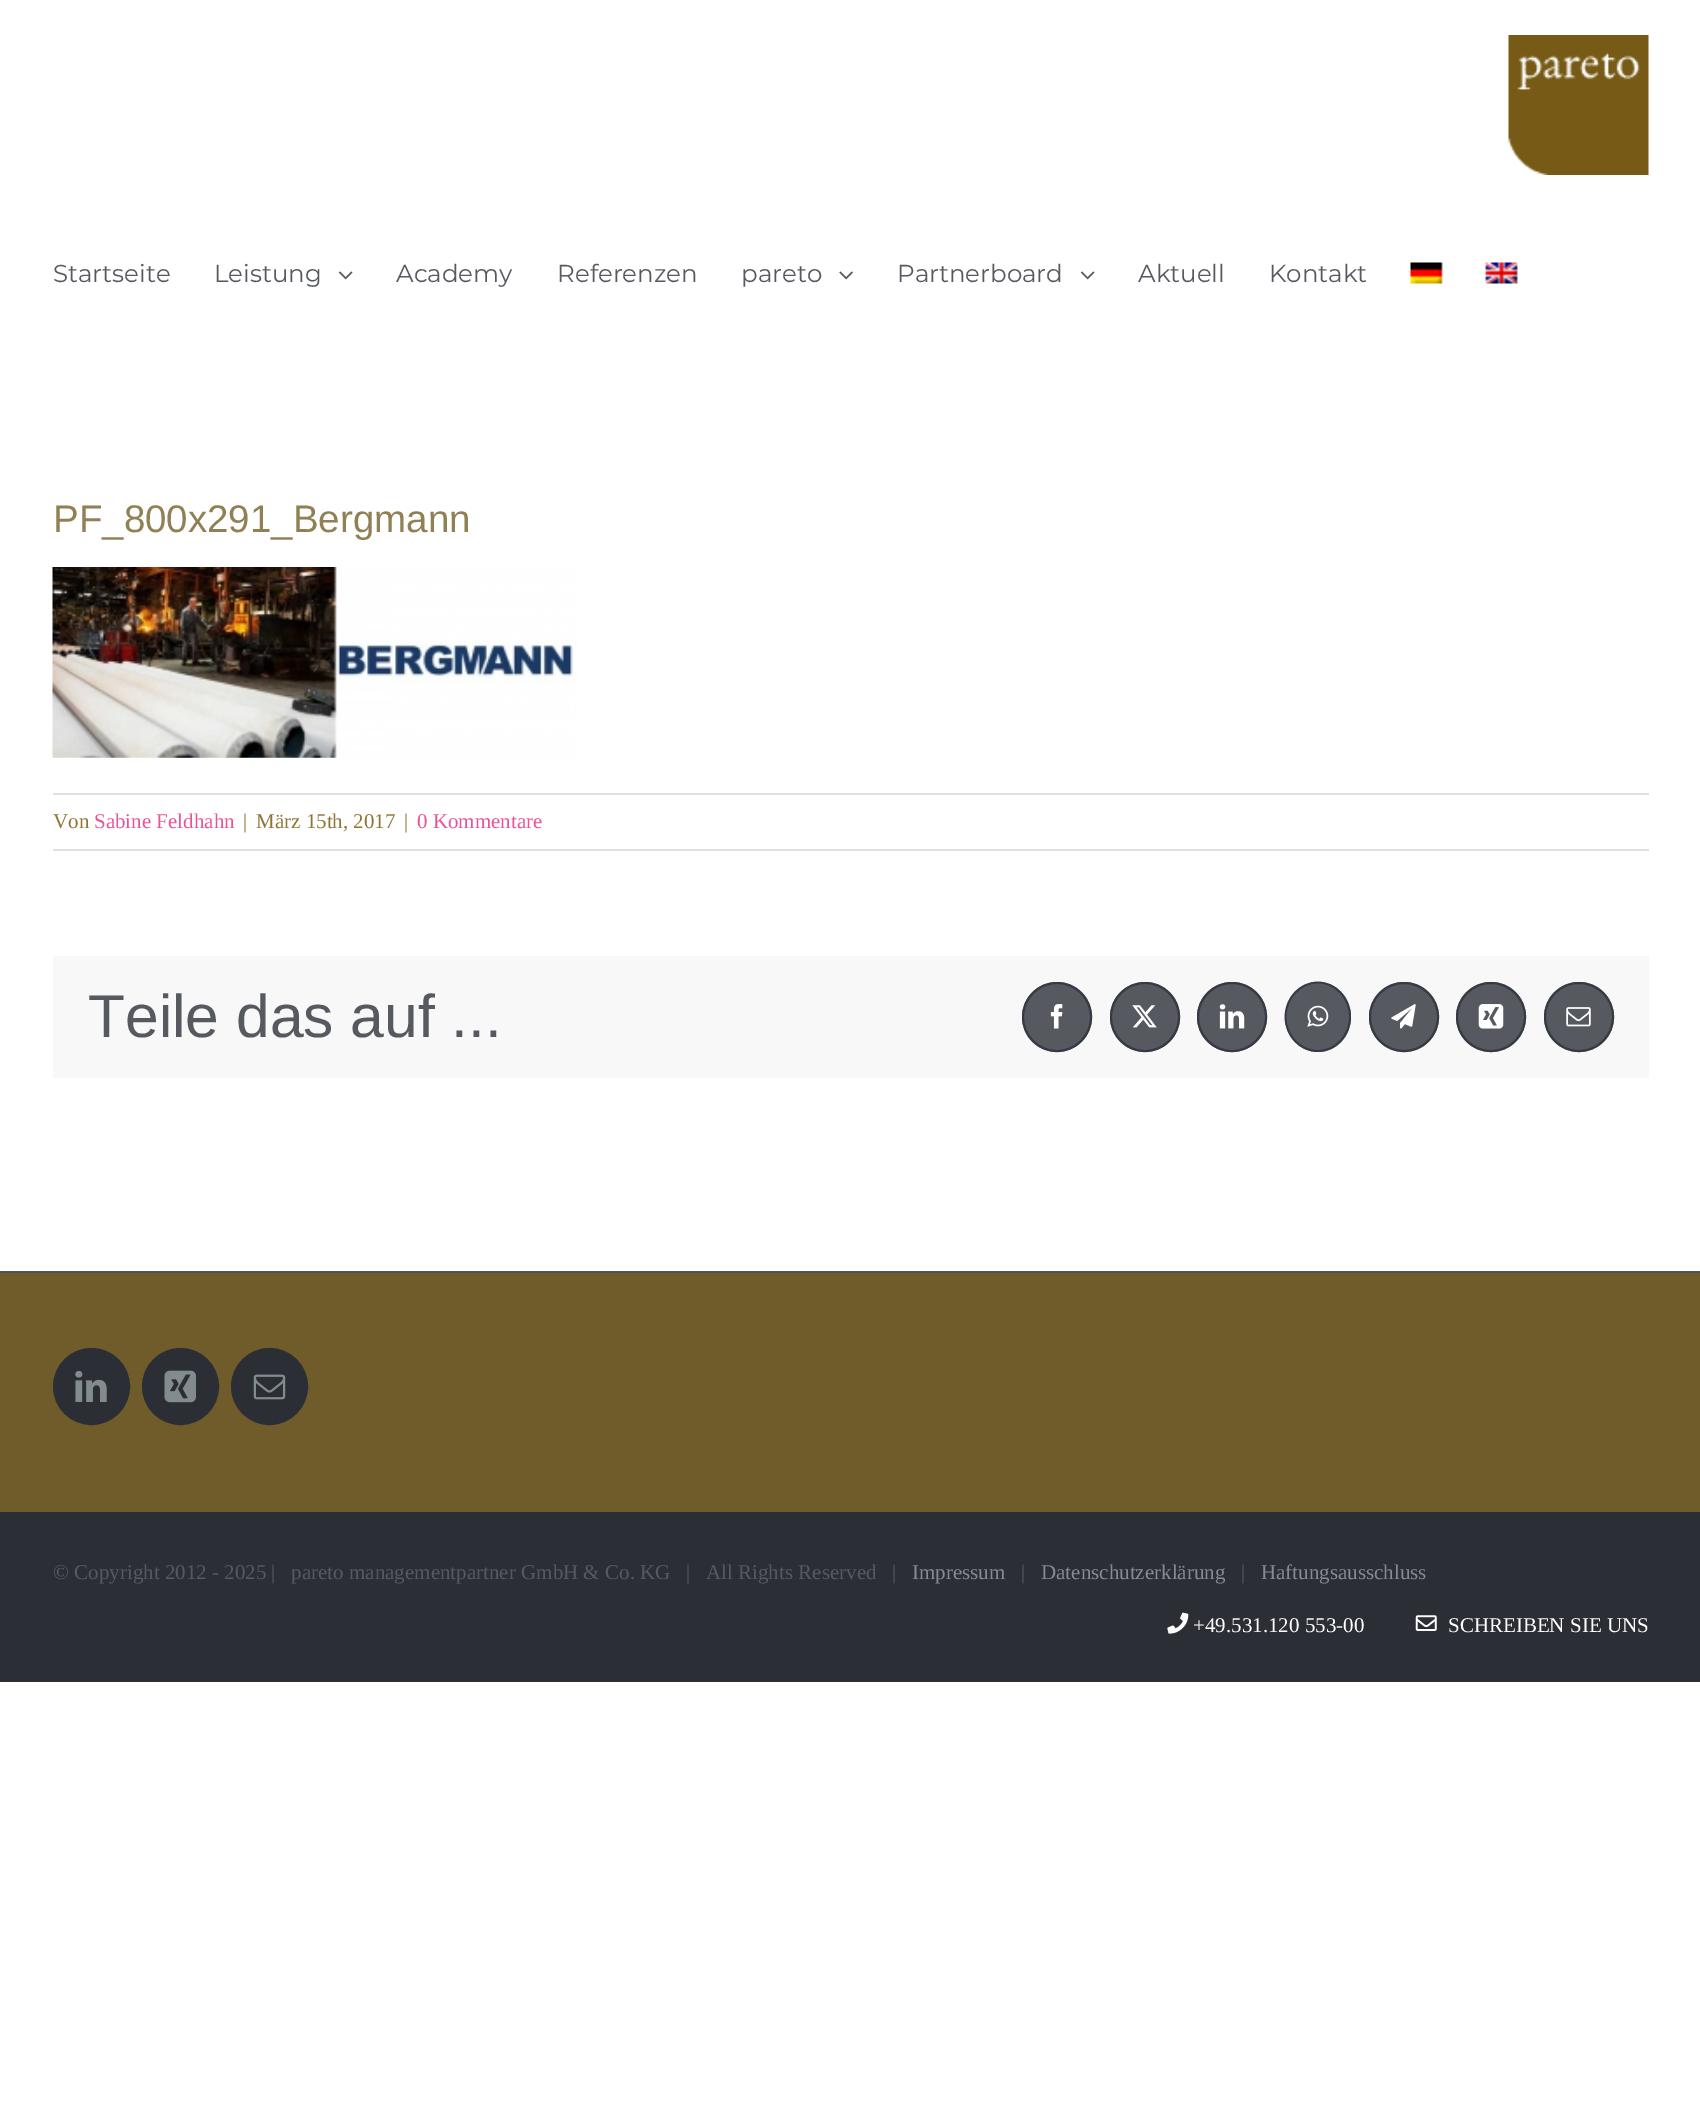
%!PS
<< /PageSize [1700 2120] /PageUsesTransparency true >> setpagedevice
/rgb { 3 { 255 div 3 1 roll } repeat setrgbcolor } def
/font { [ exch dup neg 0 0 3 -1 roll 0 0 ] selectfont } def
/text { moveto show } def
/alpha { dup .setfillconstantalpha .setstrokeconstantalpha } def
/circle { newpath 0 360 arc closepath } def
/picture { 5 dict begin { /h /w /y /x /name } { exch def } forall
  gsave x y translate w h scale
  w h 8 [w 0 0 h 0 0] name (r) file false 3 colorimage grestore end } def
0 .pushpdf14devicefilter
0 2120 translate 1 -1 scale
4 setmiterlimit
255 255 255 rgb
0 0 1700 2120 rectfill
(img_01.rgb) 1508 35 141 140 picture
(img_02.rgb) 338 271 15 9 picture
(img_03.rgb) 839 271 14 9 picture
(img_02.rgb) 1080 271 15 9 picture
(img_04.rgb) 1410 262 33 22 picture
(img_05.rgb) 1485 262 33 22 picture
(img_06.rgb) 52 567 526 191 picture
224 222 222 rgb
53 793 1596 2 rectfill
53 849 1596 2 rectfill
248 248 248 rgb
53 956 1596 122 rectfill
86 90 96 rgb
1057 1017 35 circle fill
0.8 alpha
46 50 58 rgb
2 setlinewidth
1057 1017 34 circle stroke
1 alpha
(img_07.rgb) 1050 1004 13 25 picture
86 90 96 rgb
1145 1017 35 circle fill
0.8 alpha
46 50 58 rgb
1145 1017 34 circle stroke
1 alpha
(img_08.rgb) 1132 1005 25 23 picture
86 90 96 rgb
1232 1017 35 circle fill
0.8 alpha
46 50 58 rgb
1232 1017 34 circle stroke
1 alpha
(img_09.rgb) 1219 1004 26 25 picture
86 90 96 rgb
1318 982 moveto 18 0 33 15.5 33 35 rcurveto 0 19.5 -15 35 -33 35 rcurveto -18 0 -33 -15.5 -33 -35 rcurveto 0 -19.5 15 -35 33 -35 rcurveto closepath fill
0.8 alpha
46 50 58 rgb
1.8 setlinewidth
1318 982.5 moveto 17.5 0 32 15.5 32 34.5 rcurveto 0 18.5 -14.5 34 -32 34 rcurveto -18 0 -32.5 -15.5 -32.5 -34 rcurveto 0 -19 14.5 -34.5 32.5 -34.5 rcurveto closepath stroke
1 alpha
(img_10.rgb) 1307 1005 22 22 picture
86 90 96 rgb
1404 1017 35 circle fill
0.8 alpha
46 50 58 rgb
2 setlinewidth
1404 1017 34 circle stroke
1 alpha
(img_11.rgb) 1391 1004 25 25 picture
86 90 96 rgb
1491 1017 35 circle fill
0.8 alpha
46 50 58 rgb
1491 1017 34 circle stroke
1 alpha
(img_12.rgb) 1478 1004 26 25 picture
86 90 96 rgb
1579 1017 35 circle fill
0.8 alpha
46 50 58 rgb
1579 1017 34 circle stroke
1 alpha
(img_13.rgb) 1566 1007 25 20 picture
112 92 42 rgb
0 1273 1700 239 rectfill
80 81 82 rgb
0 1271 1700 2 rectfill
43 46 53 rgb
91.5 1386.5 37.5 circle gsave fill grestore
stroke
(img_14.rgb) 75 1371 32 31 picture
180.5 1386.5 37.5 circle gsave fill grestore
stroke
(img_15.rgb) 164 1370 32 33 picture
269.5 1386.5 37.5 circle gsave fill grestore
stroke
(img_16.rgb) 253 1374 33 26 picture
0 1512 1700 170 rectfill
(img_17.rgb) 1167 1612 22 22 picture
(img_18.rgb) 1415 1615 22 16 picture
/Montserrat-Thin 24.5 font
86 90 96 rgb
(Startseite) 53 282 text
(Leistung) 214 282 text
(Academy) 396 282 text
(Referenzen) 557 282 text
(pareto) 741 282 text
(Partnerboard) 897 282 text
(Aktuell) 1138 282 text
(Kontakt) 1269 282 text
/LiberationSans-Regular 38.5 font
145 128 84 rgb
(PF_800x291_Bergmann) 53 532 text
/LiberationSerif-Regular 21 font
145 116 53 rgb
(Von) 53 828 text
234 82 151 rgb
(Sabine Feldhahn) 94 828 text
145 116 53 rgb
(|) 243 828 text
(März 15th, 2017) 256 828 text
(|) 404 828 text
234 82 151 rgb
(0 Kommentare) 417 828 text
/LiberationSans-Regular 60.5 font
86 90 96 rgb
(Teile das auf ...) 88 1037 text
/LiberationSerif-Regular 21 font
(© Copyright 2012 - 2025 |   pareto managementpartner GmbH & Co. KG   |   All Rights Reserved   |) 53 1579 text
134 138 146 rgb
(Impressum) 912 1579 text
86 90 96 rgb
(|) 1021 1579 text
134 138 146 rgb
(Datenschutzerklärung) 1041 1579 text
86 90 96 rgb
(|) 1241 1579 text
134 138 146 rgb
(Haftungsausschluss) 1261 1579 text
255 255 255 rgb
(+49.531.120 553-00) 1193 1632 text
(SCHREIBEN SIE UNS) 1448 1632 text
.poppdf14devicefilter showpage
